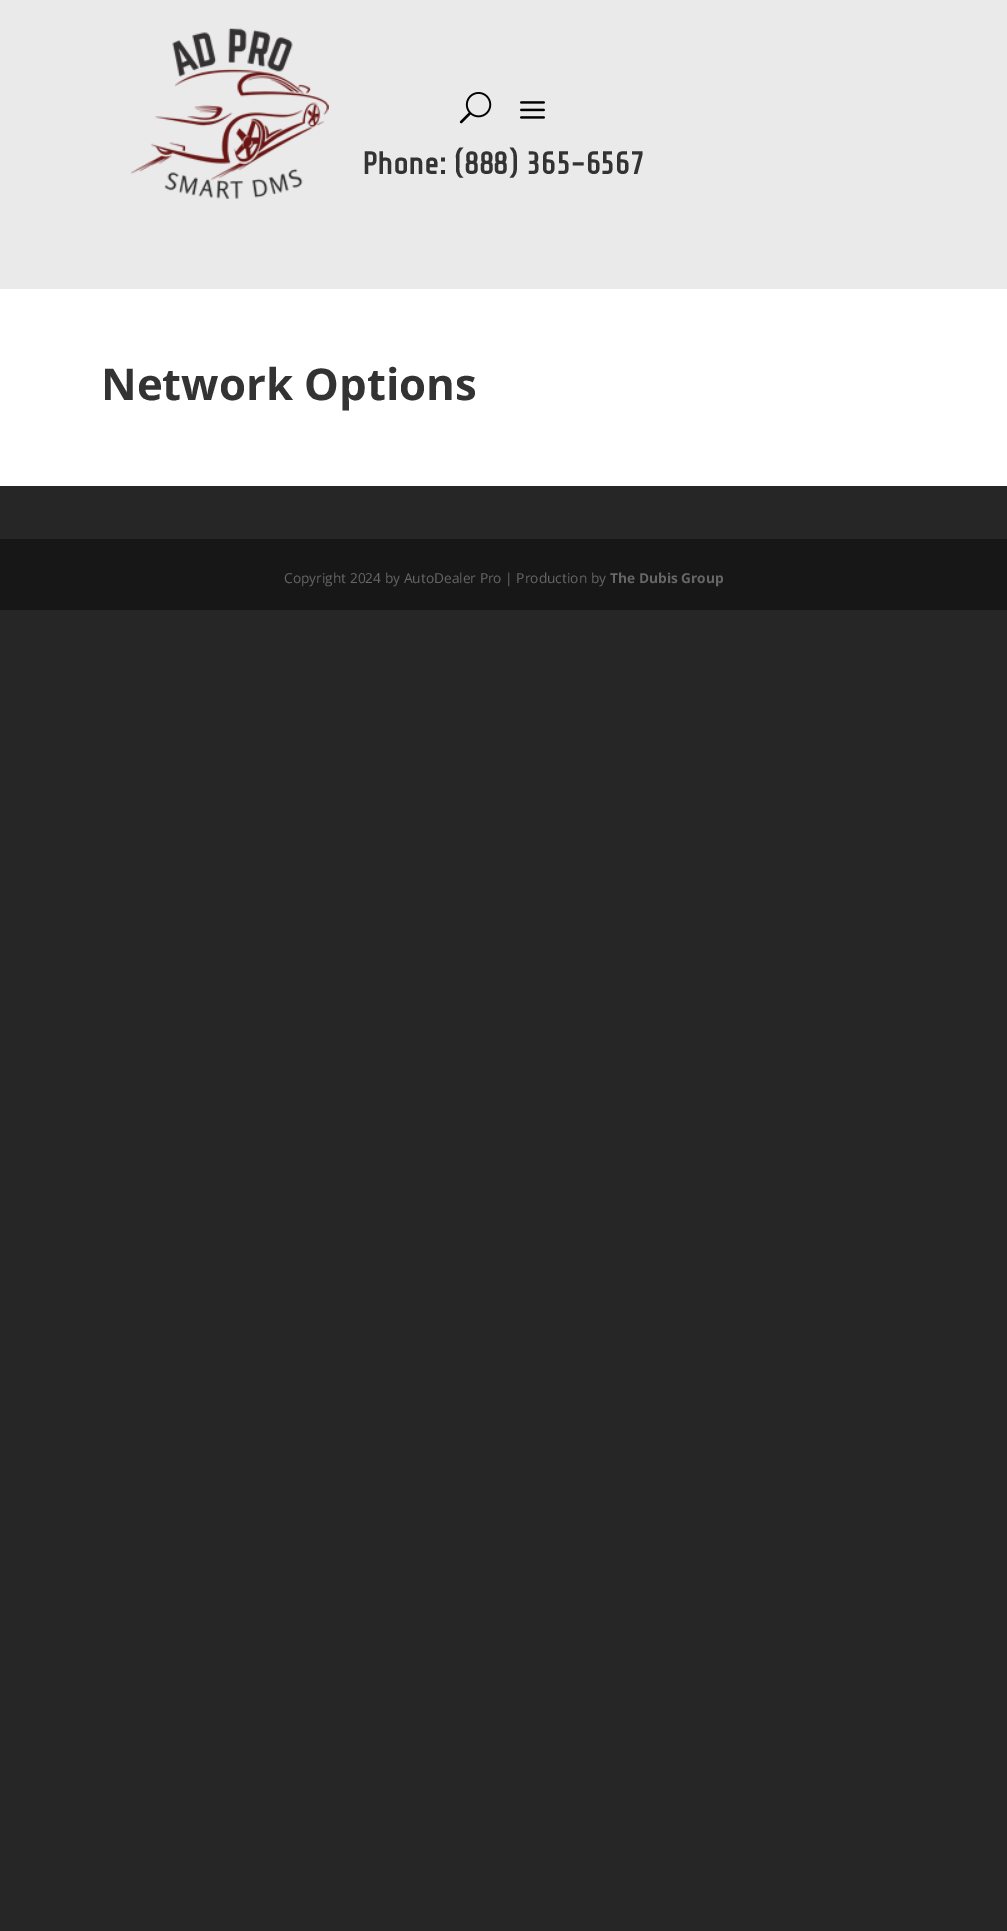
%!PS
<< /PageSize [1007 1931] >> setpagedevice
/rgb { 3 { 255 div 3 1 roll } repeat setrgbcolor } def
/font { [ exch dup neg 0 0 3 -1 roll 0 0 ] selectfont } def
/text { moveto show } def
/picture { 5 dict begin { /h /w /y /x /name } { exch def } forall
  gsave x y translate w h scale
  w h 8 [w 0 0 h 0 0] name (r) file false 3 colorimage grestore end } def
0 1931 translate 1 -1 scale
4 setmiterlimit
38 38 38 rgb
0 0 1007 1931 rectfill
234 234 234 rgb
0 0 1007 289 rectfill
(img_01.rgb) 131 28 198 171 picture
(img_02.rgb) 459 92 33 32 picture
(img_03.rgb) 520 101 25 18 picture
255 255 255 rgb
0 289 1007 197 rectfill
23 23 23 rgb
0 539 1007 71 rectfill
/ShareTech-Bold 31.25 font
51 51 51 rgb
(Phone: \(888\) 365-6567) 362 174 text
/OpenSans-Bold 43.75 font
(Network Options) 101 400 text
/OpenSans-Regular 13.75 font
102 102 102 rgb
(Copyright 2024 by AutoDealer Pro | Production by) 284 583 text
/OpenSans-Bold 13.75 font
(The Dubis Group) 610 583 text
showpage
